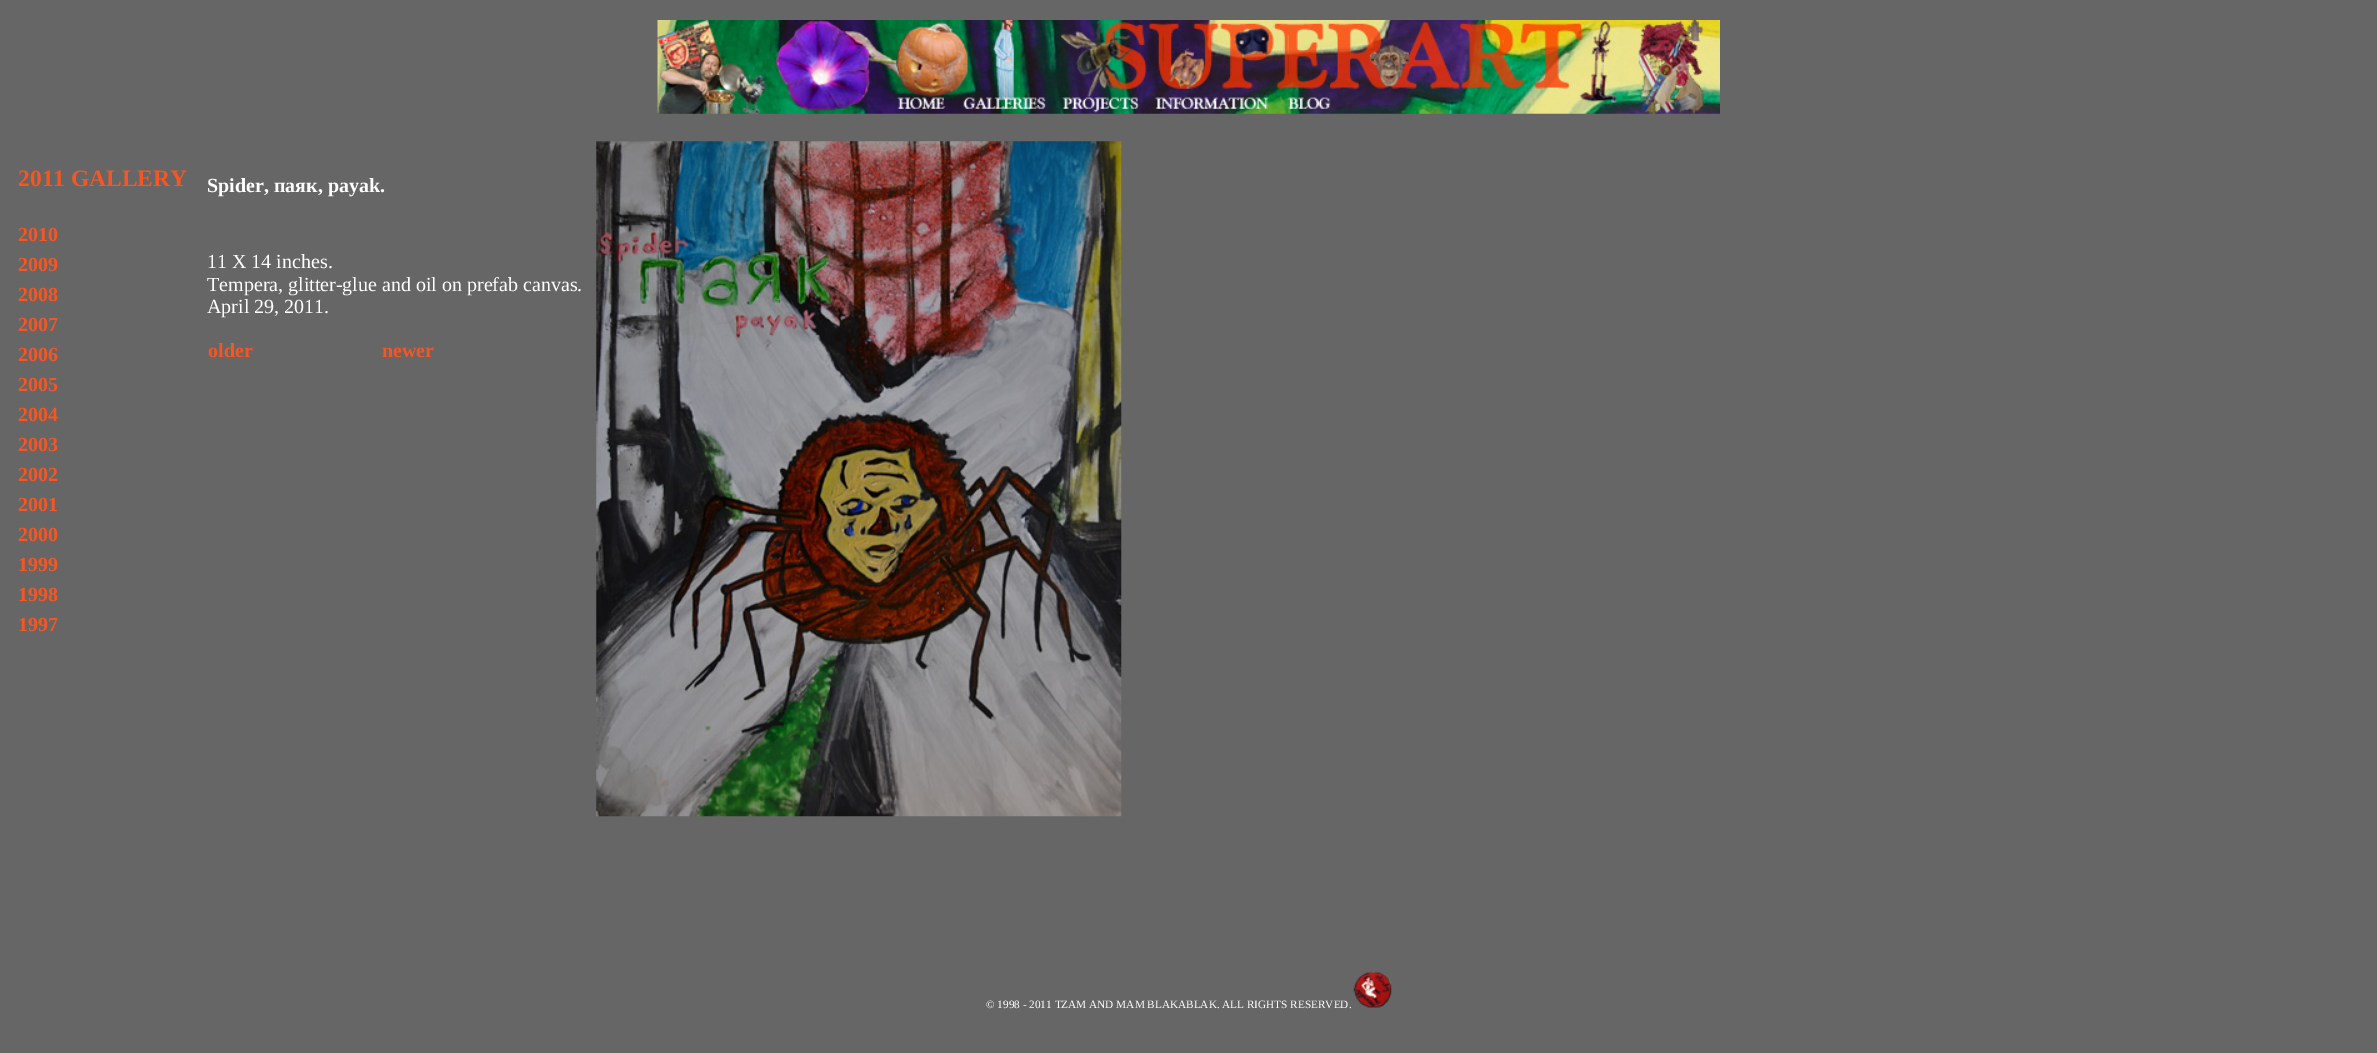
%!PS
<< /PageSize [2377 1053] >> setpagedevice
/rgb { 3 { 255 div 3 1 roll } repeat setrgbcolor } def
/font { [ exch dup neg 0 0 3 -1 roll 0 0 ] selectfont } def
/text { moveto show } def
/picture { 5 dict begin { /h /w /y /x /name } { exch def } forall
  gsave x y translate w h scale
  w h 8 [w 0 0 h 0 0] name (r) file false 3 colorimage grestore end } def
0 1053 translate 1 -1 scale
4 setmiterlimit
102 102 102 rgb
0 0 2377 1053 rectfill
(img_01.rgb) 657 20 1063 94 picture
(img_02.rgb) 596 141 526 676 picture
(img_03.rgb) 1353 971 39 37 picture
/LiberationSerif-Bold 23.5 font
247 86 34 rgb
(2011 GALLERY) 18 186 text
/LiberationSerif-Bold 20 font
(2010) 18 241 text
(2009) 18 271 text
(2008) 18 301 text
(2007) 18 331 text
(2006) 18 361 text
(2005) 18 391 text
(2004) 18 421 text
(2003) 18 451 text
(2002) 18 481 text
(2001) 18 511 text
(2000) 18 541 text
(1999) 18 571 text
(1998) 18 601 text
(1997) 18 631 text
255 255 255 rgb
(Spider, паяк, payak.) 207 192 text
/LiberationSerif-Regular 20 font
(11 X 14 inches.) 207 268 text
(Tempera, glitter-glue and oil on prefab canvas.) 207 291 text
(April 29, 2011.) 207 313 text
/LiberationSerif-Bold 20 font
247 86 34 rgb
(older) 208 357 text
(newer) 382 357 text
/LiberationSerif-Regular 11.25 font
255 255 255 rgb
(© 1998 - 2011 TZAM AND MAM BLAKABLAK. ALL RIGHTS RESERVED.) 986 1008 text
showpage
